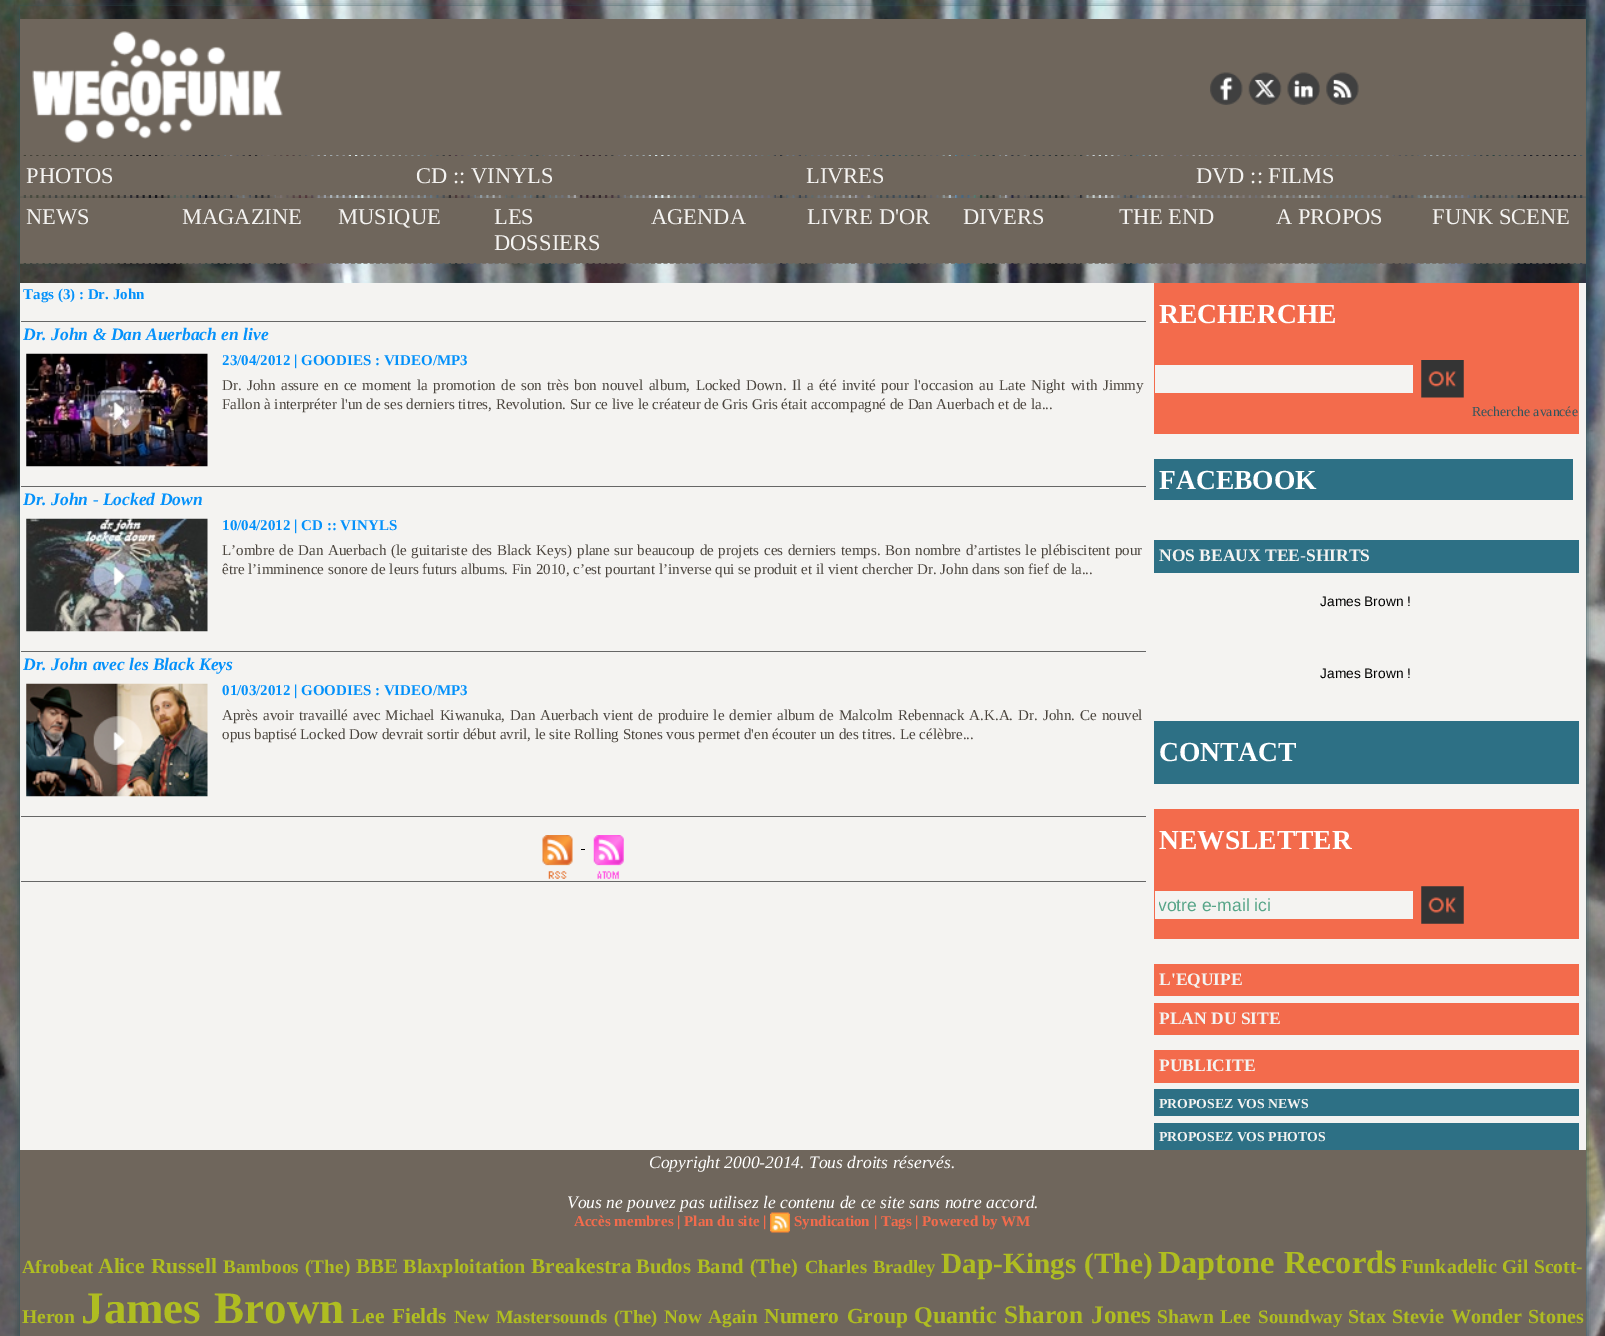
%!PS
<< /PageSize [1605 1336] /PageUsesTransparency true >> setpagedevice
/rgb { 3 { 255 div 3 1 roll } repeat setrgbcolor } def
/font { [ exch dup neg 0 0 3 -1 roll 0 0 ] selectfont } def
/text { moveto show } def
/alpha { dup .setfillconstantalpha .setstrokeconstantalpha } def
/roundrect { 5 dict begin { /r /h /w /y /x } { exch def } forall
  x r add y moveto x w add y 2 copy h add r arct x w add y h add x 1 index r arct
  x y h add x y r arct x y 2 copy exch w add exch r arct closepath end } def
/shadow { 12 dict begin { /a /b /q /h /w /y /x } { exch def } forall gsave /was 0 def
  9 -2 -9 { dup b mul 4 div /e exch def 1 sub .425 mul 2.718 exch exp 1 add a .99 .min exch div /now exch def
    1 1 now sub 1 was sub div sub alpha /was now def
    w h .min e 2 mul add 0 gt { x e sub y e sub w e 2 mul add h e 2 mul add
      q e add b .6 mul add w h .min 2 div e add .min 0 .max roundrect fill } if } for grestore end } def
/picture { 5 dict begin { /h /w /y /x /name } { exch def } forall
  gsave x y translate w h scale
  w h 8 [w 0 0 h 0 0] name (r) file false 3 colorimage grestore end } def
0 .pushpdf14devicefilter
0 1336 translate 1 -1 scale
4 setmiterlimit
255 255 255 rgb
0 0 1605 1336 rectfill
(img_01.rgb) 0 0 1605 1336 picture
gsave
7 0 moveto 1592 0 rlineto 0 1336 rlineto -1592 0 rlineto closepath 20 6 moveto 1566 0 rlineto 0 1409 rlineto -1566 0 rlineto closepath eoclip newpath
48 85 93 rgb
20 8 1566 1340 0 4 1 shadow
grestore
111 102 92 rgb
1.2 setlinewidth
[3.75 2.5] 0 setdash
20 155.5 moveto 1566 0 rlineto stroke
20 19 1566 136 rectfill
(img_02.rgb) 32 31 251 112 picture
(img_03.rgb) 1210 72 33 33 picture
(img_04.rgb) 1248 72 34 33 picture
(img_05.rgb) 1287 72 33 33 picture
(img_06.rgb) 1326 72 33 33 picture
20 195.5 moveto 1566 0 rlineto stroke
20 156 1566 39 rectfill
20 197 moveto 1566 0 rlineto stroke
20 263 moveto 1566 0 rlineto stroke
20 198 1566 65 rectfill
244 243 241 rgb
20 283 1566 867 rectfill
102 102 102 rgb
21 321 1125 1 rectfill
21 486 1125 1 rectfill
(img_07.rgb) 26 353 182 114 picture
(img_08.rgb) 93 386 50 49 picture
21 651 1125 1 rectfill
(img_09.rgb) 26 518 182 114 picture
(img_10.rgb) 93 551 50 49 picture
21 816 1125 1 rectfill
(img_11.rgb) 26 683 182 114 picture
(img_12.rgb) 93 716 50 49 picture
21 881 1125 1 rectfill
(img_13.rgb) 542 835 31 44 picture
0 0 0 rgb
581 849 4 1 rectfill
(img_14.rgb) 593 835 31 44 picture
243 107 76 rgb
1154 283 425 151 rectfill
244 243 241 rgb
1155 365 258 28 rectfill
(img_15.rgb) 1421 360 43 38 picture
45 112 133 rgb
1154 459 419 41 rectfill
1154 540 425 33 rectfill
1154 721 425 63 rectfill
243 107 76 rgb
1154 809 425 130 rectfill
244 243 241 rgb
1155 891 258 28 rectfill
(img_16.rgb) 1421 886 43 38 picture
243 107 76 rgb
1154 964 425 32 rectfill
1154 1003 425 32 rectfill
1154 1050 425 33 rectfill
45 112 133 rgb
1154 1089 425 27 rectfill
1154 1123 425 27 rectfill
111 102 92 rgb
20 1150 1566 186 rectfill
(img_17.rgb) 770 1212 20 21 picture
/LiberationSerif-Regular 22.5 font
244 243 241 rgb
(PHOTOS) 26 183 text
(CD :: VINYLS) 416 183 text
(LIVRES) 806 183 text
(DVD :: FILMS) 1196 183 text
(NEWS) 26 224 text
(MAGAZINE) 182 224 text
(MUSIQUE) 338 224 text
(LES) 494 224 text
(DOSSIERS) 494 250 text
(AGENDA) 651 224 text
(LIVRE D'OR) 807 224 text
(DIVERS) 963 224 text
(THE END) 1119 224 text
(A PROPOS) 1276 224 text
(FUNK SCENE) 1432 224 text
/LiberationSerif-Bold 15 font
4 145 250 rgb
(Tags \(3\) : Dr. John) 23 299 text
/LiberationSerif-BoldItalic 17.5 font
(Dr. John & Dan Auerbach en live) 23 340 text
/LiberationSerif-Bold 15 font
(23/04/2012 | GOODIES : VIDEO/MP3) 222 365 text
/LiberationSerif-Regular 15 font
74 68 61 rgb
222 390 moveto 1.75 0 32 (Dr. John assure en ce moment la promotion de son très bon nouvel album, Locked Down. Il a été invité pour l'occasion au Late Night with Jimmy) widthshow
(Fallon à interpréter l'un de ses derniers titres, Revolution. Sur ce live le créateur de Gris Gris était accompagné de Dan Auerbach et de la...) 222 409 text
/LiberationSerif-BoldItalic 17.5 font
4 145 250 rgb
(Dr. John - Locked Down) 23 505 text
/LiberationSerif-Bold 15 font
(10/04/2012 | CD :: VINYLS) 222 530 text
/LiberationSerif-Regular 15 font
74 68 61 rgb
222 555 moveto 1 0 32 (L’ombre de Dan Auerbach \(le guitariste des Black Keys\) plane sur beaucoup de projets ces derniers temps. Bon nombre d’artistes le plébiscitent pour) widthshow
(être l’imminence sonore de leurs futurs albums. Fin 2010, c’est pourtant l’inverse qui se produit et il vient chercher Dr. John dans son fief de la...) 222 574 text
/LiberationSerif-BoldItalic 17.5 font
4 145 250 rgb
(Dr. John avec les Black Keys) 23 670 text
/LiberationSerif-Bold 15 font
(01/03/2012 | GOODIES : VIDEO/MP3) 222 695 text
/LiberationSerif-Regular 15 font
74 68 61 rgb
222 720 moveto 1.3 0 32 (Après avoir travaillé avec Michael Kiwanuka, Dan Auerbach vient de produire le dernier album de Malcolm Rebennack A.K.A. Dr. John. Ce nouvel) widthshow
(opus baptisé Locked Dow devrait sortir début avril, le site Rolling Stones vous permet d'en écouter un des titres. Le célèbre...) 222 739 text
/LiberationSerif-Bold 27.5 font
255 255 255 rgb
(RECHERCHE) 1159 323 text
/LiberationSerif-Regular 13.75 font
48 85 93 rgb
(Recherche avancée) 1472 416 text
/LiberationSerif-Bold 27.5 font
255 255 255 rgb
(FACEBOOK) 1159 489 text
/LiberationSerif-Bold 17.5 font
244 243 241 rgb
(NOS BEAUX TEE-SHIRTS) 1159 561 text
/LiberationSans-Regular 13.75 font
0 0 0 rgb
(James Brown !) 1320 606 text
(James Brown !) 1320 678 text
/LiberationSerif-Bold 27.5 font
255 255 255 rgb
(CONTACT) 1159 761 text
(NEWSLETTER) 1159 849 text
gsave
1159 895 250 20 rectclip
/LiberationSans-Regular 17.5 font
87 165 136 rgb
(votre e-mail ici) 1158 911 text
grestore
/LiberationSerif-Bold 17.5 font
244 243 241 rgb
(L'EQUIPE) 1159 985 text
(PLAN DU SITE) 1159 1024 text
(PUBLICITE) 1159 1071 text
/LiberationSerif-Bold 13.75 font
(PROPOSEZ VOS NEWS) 1159 1108 text
(PROPOSEZ VOS PHOTOS) 1159 1141 text
/LiberationSerif-Italic 17.5 font
255 255 255 rgb
(Copyright 2000-2014. Tous droits réservés.) 649 1168 text
(Vous ne pouvez pas utilisez le contenu de ce site sans notre accord.) 567 1208 text
/LiberationSerif-Bold 15 font
243 107 76 rgb
(Accès membres | Plan du site |) 574 1226 text
(Syndication | Tags | Powered by WM) 794 1226 text
/LiberationSerif-Bold 18.6 font
175 189 33 rgb
(Afrobeat) 22 1273 text
/LiberationSerif-Bold 21.5 font
98 1273 moveto 1 0 32 (Alice Russell) widthshow
/LiberationSerif-Bold 19.25 font
223 1273 moveto 1.3 0 32 (Bamboos \(The\)) widthshow
/LiberationSerif-Bold 21 font
(BBE) 356 1273 text
/LiberationSerif-Bold 20.25 font
(Blaxploitation) 403 1273 text
/LiberationSerif-Bold 21.25 font
(Breakestra) 531 1273 text
/LiberationSerif-Bold 20.5 font
636 1273 moveto 1 0 32 (Budos Band \(The\)) widthshow
/LiberationSerif-Bold 18.6 font
805 1273 moveto 1 0 32 (Charles Bradley) widthshow
/LiberationSerif-Bold 29.25 font
941 1273 moveto 1 0 32 (Dap-Kings \(The\)) widthshow
/LiberationSerif-Bold 32.25 font
1158 1273 moveto 1 0 32 (Daptone Records) widthshow
/LiberationSerif-Bold 20 font
(Funkadelic) 1401 1273 text
/LiberationSerif-Bold 19.5 font
1502 1273 moveto 1 0 32 (Gil Scott-) widthshow
(Heron) 22 1323 text
/LiberationSerif-Bold 45 font
81 1323 moveto 2 0 32 (James Brown) widthshow
/LiberationSerif-Bold 21.5 font
351 1323 moveto 2 0 32 (Lee Fields) widthshow
/LiberationSerif-Bold 18.6 font
454 1323 moveto 2 0 32 (New Mastersounds \(The\)) widthshow
/LiberationSerif-Bold 19.25 font
664 1323 moveto 2 0 32 (Now Again) widthshow
/LiberationSerif-Bold 21.5 font
764 1323 moveto 2 0 32 (Numero Group) widthshow
/LiberationSerif-Bold 24 font
(Quantic) 914 1323 text
/LiberationSerif-Bold 25.25 font
1004 1323 moveto 2 0 32 (Sharon Jones) widthshow
/LiberationSerif-Bold 19.5 font
1157 1323 moveto 2 0 32 (Shawn Lee) widthshow
/LiberationSerif-Bold 19 font
(Soundway) 1258 1323 text
/LiberationSerif-Bold 20 font
(Stax) 1348 1323 text
/LiberationSerif-Bold 20.25 font
1392 1323 moveto 2 0 32 (Stevie Wonder) widthshow
/LiberationSerif-Bold 20 font
(Stones) 1528 1323 text
.poppdf14devicefilter showpage
